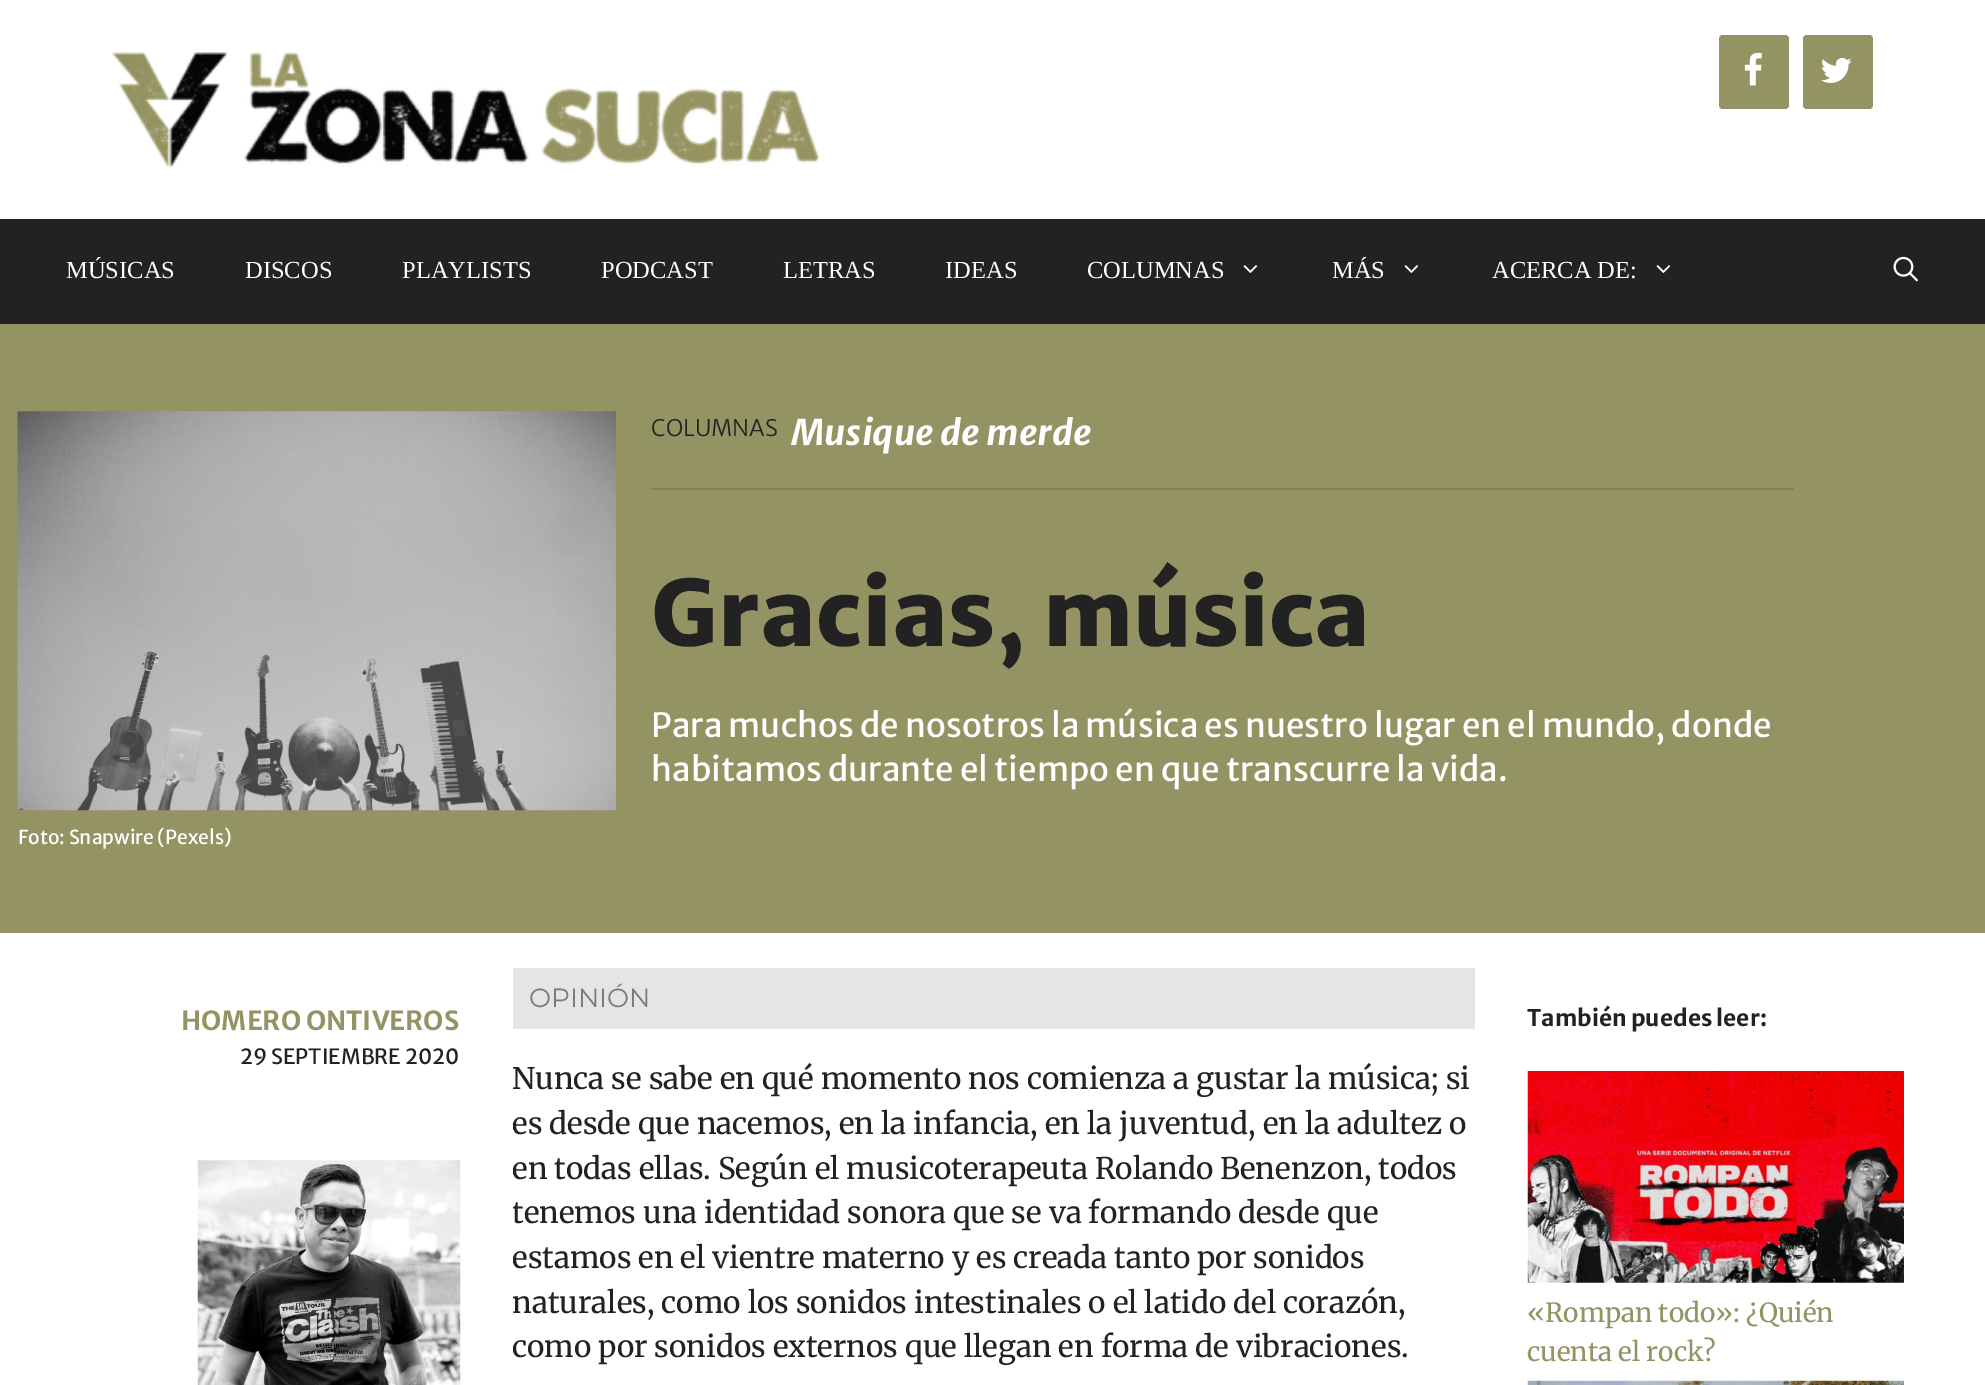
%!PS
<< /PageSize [1985 1385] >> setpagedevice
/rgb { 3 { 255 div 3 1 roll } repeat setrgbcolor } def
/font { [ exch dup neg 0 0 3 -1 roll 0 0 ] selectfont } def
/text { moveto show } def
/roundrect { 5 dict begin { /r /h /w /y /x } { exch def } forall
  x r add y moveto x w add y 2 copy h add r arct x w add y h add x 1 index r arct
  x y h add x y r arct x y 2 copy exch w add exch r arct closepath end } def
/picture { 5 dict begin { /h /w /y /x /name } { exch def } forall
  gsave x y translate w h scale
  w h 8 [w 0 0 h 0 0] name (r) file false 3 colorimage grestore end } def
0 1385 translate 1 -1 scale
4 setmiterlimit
255 255 255 rgb
0 0 1985 1385 rectfill
(img_01.rgb) 111 52 709 115 picture
148 147 99 rgb
1719 35 70 74 4 roundrect fill
(img_02.rgb) 1744 52 18 34 picture
1803 35 70 74 4 roundrect fill
(img_03.rgb) 1821 57 31 26 picture
34 34 34 rgb
0 219 1985 105 rectfill
(img_04.rgb) 1243 265 15 8 picture
(img_04.rgb) 1404 265 15 8 picture
(img_04.rgb) 1656 265 15 8 picture
(img_05.rgb) 1893 256 25 26 picture
148 147 99 rgb
0 324 1985 609 rectfill
133 132 89 rgb
651 488 1143 2 rectfill
(img_06.rgb) 17 411 599 400 picture
(img_07.rgb) 197 1160 264 225 picture
229 229 229 rgb
513 968 962 61 rectfill
(img_08.rgb) 1527 1071 377 212 picture
(img_09.rgb) 1527 1380 377 5 picture
/LiberationSerif-Regular 24.5 font
255 255 255 rgb
(MÚSICAS) 66 278 text
(DISCOS) 245 278 text
(PLAYLISTS) 402 278 text
(PODCAST) 601 278 text
(LETRAS) 783 278 text
(IDEAS) 945 278 text
(COLUMNAS) 1087 278 text
(MÁS) 1332 278 text
(ACERCA DE:) 1492 278 text
/MerriweatherSans-Light 22.75 font
34 34 34 rgb
(COLUMNAS) 651 436 text
/MerriweatherSans-BoldItalic 35 font
255 255 255 rgb
(Musique de merde) 791 445 text
/MerriweatherSans-ExtraBold 91 font
34 34 34 rgb
(Gracias, música) 651 646 text
/MerriweatherSans-Regular 33.25 font
255 255 255 rgb
(Para muchos de nosotros la música es nuestro lugar en el mundo, donde) 651 737 text
(habitamos durante el tiempo en que transcurre la vida.) 651 781 text
/MerriweatherSans-Regular 19.25 font
(Foto: Snapwire \(Pexels\)) 18 844 text
/MerriweatherSans-Bold 26.25 font
148 147 99 rgb
(HOMERO ONTIVEROS) 181 1030 text
/MerriweatherSans-Regular 21 font
34 34 34 rgb
(29 SEPTIEMBRE 2020) 240 1064 text
/Montserrat-Regular 26.25 font
122 122 122 rgb
(OPINIÓN) 529 1007 text
/Merriweather-Regular 29.75 font
34 34 34 rgb
(Nunca se sabe en qué momento nos comienza a gustar la música; si) 512 1089 text
255 255 255 rgb
512 1067 1 2 rectfill
34 34 34 rgb
(es desde que nacemos, en la infancia, en la juventud, en la adultez o) 512 1134 text
(en todas ellas. Según el musicoterapeuta Rolando Benenzon, todos) 512 1179 text
(tenemos una identidad sonora que se va formando desde que) 512 1223 text
(estamos en el vientre materno y es creada tanto por sonidos) 512 1268 text
(naturales, como los sonidos intestinales o el latido del corazón,) 512 1313 text
(como por sonidos externos que llegan en forma de vibraciones.) 512 1357 text
255 255 255 rgb
512 1125 1 225 rectfill
/MerriweatherSans-Bold 22.75 font
34 34 34 rgb
(También puedes leer:) 1527 1026 text
/Merriweather-Regular 26.25 font
148 147 99 rgb
(«Rompan todo»: ¿Quién) 1527 1322 text
(cuenta el rock?) 1527 1361 text
showpage
